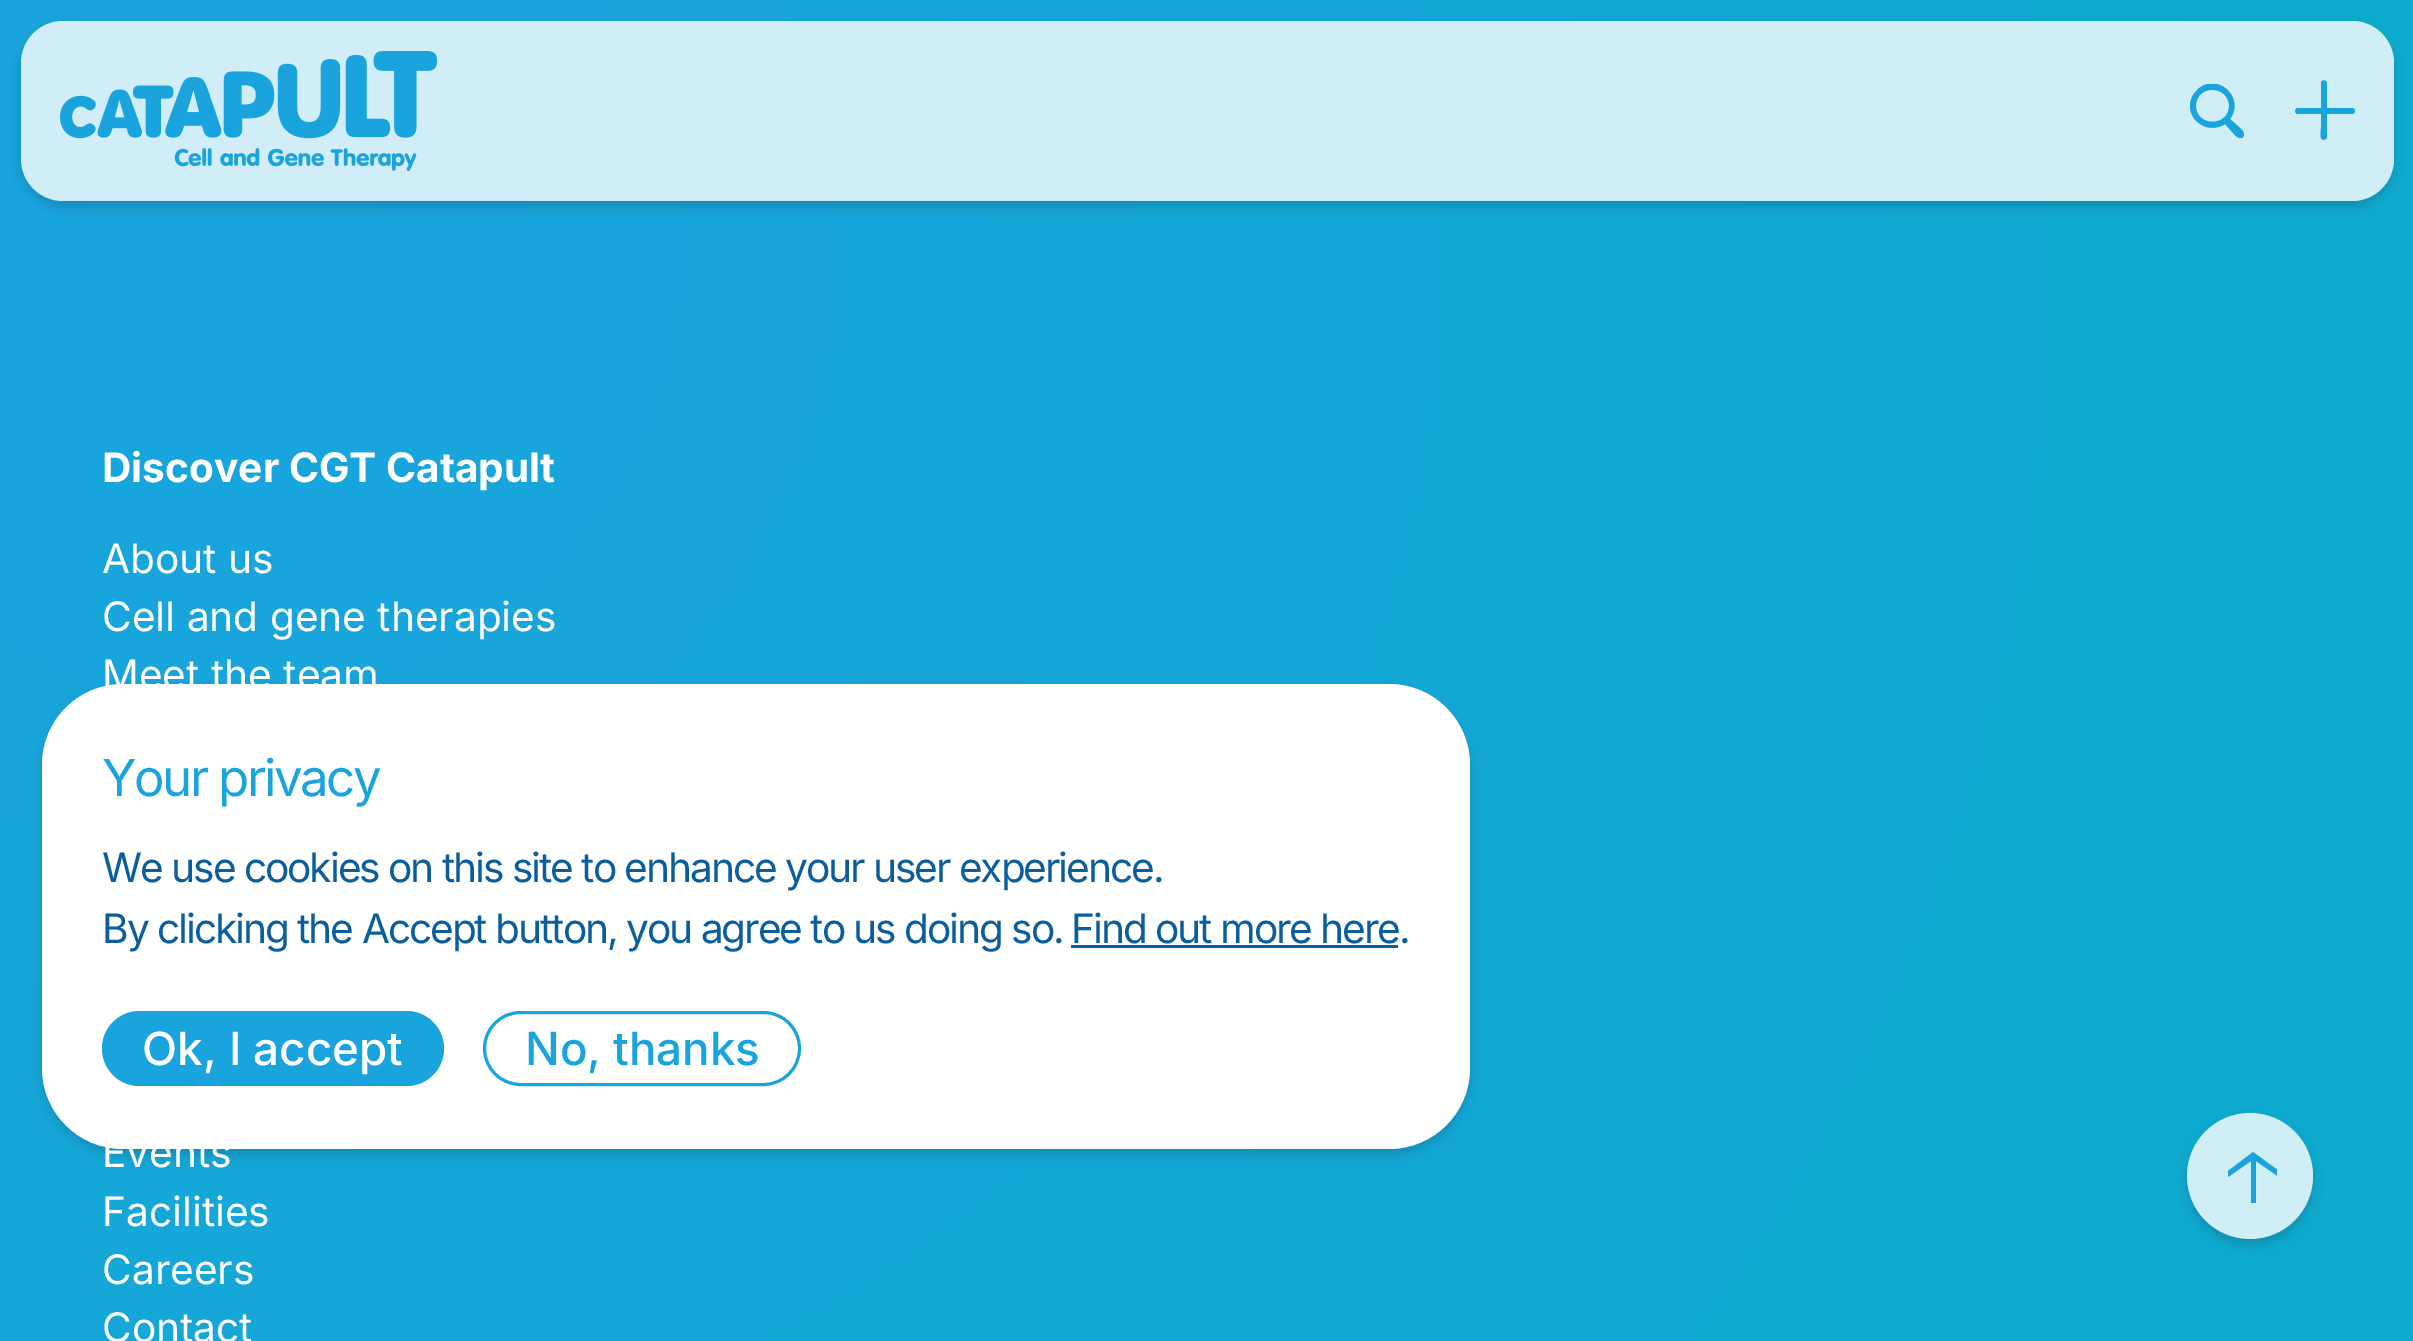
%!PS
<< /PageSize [2413 1341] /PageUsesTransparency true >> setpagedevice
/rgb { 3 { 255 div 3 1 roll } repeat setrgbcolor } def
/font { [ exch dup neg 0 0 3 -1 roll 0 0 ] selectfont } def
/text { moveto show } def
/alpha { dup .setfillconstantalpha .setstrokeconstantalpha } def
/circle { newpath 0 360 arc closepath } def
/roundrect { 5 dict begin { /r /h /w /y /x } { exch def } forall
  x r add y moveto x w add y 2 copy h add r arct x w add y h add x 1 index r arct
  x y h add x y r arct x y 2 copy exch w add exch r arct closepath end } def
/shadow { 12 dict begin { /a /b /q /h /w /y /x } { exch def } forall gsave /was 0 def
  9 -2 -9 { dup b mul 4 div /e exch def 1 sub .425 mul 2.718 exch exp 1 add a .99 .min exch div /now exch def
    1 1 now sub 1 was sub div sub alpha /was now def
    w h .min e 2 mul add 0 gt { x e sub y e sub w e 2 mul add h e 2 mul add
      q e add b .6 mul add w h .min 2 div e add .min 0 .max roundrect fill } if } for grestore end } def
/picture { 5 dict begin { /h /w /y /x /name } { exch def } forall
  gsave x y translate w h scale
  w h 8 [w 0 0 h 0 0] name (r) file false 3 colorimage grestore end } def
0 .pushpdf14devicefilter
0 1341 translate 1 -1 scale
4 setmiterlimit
255 255 255 rgb
0 0 2413 1341 rectfill
gsave 0 0 moveto 2413 0 rlineto 0 1341 rlineto -2413 0 rlineto closepath clip newpath 229 250 translate 4848 4848 scale
<< /ShadingType 3 /ColorSpace /DeviceRGB /Coords [0 0 0 0 0 1] /Extend [true true] /Function << /FunctionType 2 /Domain [0 1] /C0 [0.102 0.643 0.871] /C1 [0.004 0.698 0.753] /N 1 >> >> shfill grestore
gsave
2 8 moveto 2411 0 rlineto 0 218 rlineto -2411 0 rlineto closepath 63 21 moveto 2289 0 rlineto 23 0 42 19 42 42 rcurveto 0 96 rlineto 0 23 -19 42 -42 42 rcurveto -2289 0 rlineto -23 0 -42 -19 -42 -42 rcurveto 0 -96 rlineto 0 -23 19 -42 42 -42 rcurveto closepath eoclip newpath
0 0 0 rgb
21 27 2373 180 42 6 0.16 shadow
grestore
0.8 alpha
21 21 2373 180 42 roundrect fill
1 alpha
(img_01.rgb) 60 51 378 120 picture
gsave
2190 84 54 54 rectclip
26 164 222 rgb
2190 106 moveto 0 17 20 28 35 18 rcurveto 8 9 rlineto 2 2 7 8 10 4 rcurveto 3 -4 -2 -8 -4 -10 rcurveto -9 -8 rlineto 16 -22 -14 -48 -33 -29 rcurveto -5 5 -7 10 -7 16 rcurveto 2196 106 moveto 0 -22 33 -21 33 0 rcurveto 0 21 -33 21 -33 0 rcurveto fill
grestore
26 164 222 rgb
2327 83 moveto 0 55 rlineto -1 1 rlineto -3 1 rlineto -4 -1 -2 -11 -2 -12 rcurveto 0 -46 rlineto 1 -2 4 -2 5 -1 rcurveto closepath fill
2295 108 60 6 3 roundrect fill
0 0 0 rgb
42 690 1428 465 81 6 0.16 shadow
255 255 255 rgb
42 684 1428 465 81 roundrect fill
11 94 157 rgb
1071 945 327 3 rectfill
26 164 222 rgb
102 1011 342 75 37.5 roundrect fill
3 setlinewidth
484.5 1012.5 315 72 36 roundrect stroke
gsave
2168 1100 moveto 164 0 rlineto 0 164 rlineto -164 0 rlineto closepath 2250 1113 moveto 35 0 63 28 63 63 rcurveto 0 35 -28 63 -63 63 rcurveto -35 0 -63 -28 -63 -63 rcurveto 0 -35 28 -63 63 -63 rcurveto closepath eoclip newpath
0 0 0 rgb
2187 1119 126 126 63 6 0.16 shadow
grestore
0.8 alpha
255 255 255 rgb
2250 1176 63 circle fill
gsave
2226 1152 51 51 rectclip
1 alpha
26 164 222 rgb
2228 1171 moveto 0 6 rlineto 23 -16 rlineto 0 42 rlineto 5 0 rlineto 0 -42 rlineto 23 16 rlineto 0 -6 rlineto -26 -19 rlineto closepath fill
grestore
/Inter-Bold 40.65 font
1 alpha
(Discover CGT Catapult) 102 482 text
/Inter-Regular 40.65 font
(About us) 102 573 text
(Cell and gene therapies) 102 631 text
(Meet the team) 102 689 text
(Events) 102 1167 text
(Facilities) 102 1226 text
(Careers) 102 1284 text
(Contact) 102 1342 text
/Inter-Regular 51 font
26 164 222 rgb
102 796 moveto -2.5 0 (Your privacy) ashow
/Inter-Regular 40.65 font
11 94 157 rgb
102 882 moveto -2.03 0 (We use cookies on this site to enhance your user experience.) ashow
102 943 moveto -2.03 0 (By clicking the Accept button, you agree to us doing so.) ashow
1071 943 moveto -2.03 0 (Find out more here.) ashow
/Inter-Medium 45.75 font
255 255 255 rgb
(Ok, I accept) 142 1065 text
26 164 222 rgb
(No, thanks) 525 1065 text
.poppdf14devicefilter showpage
